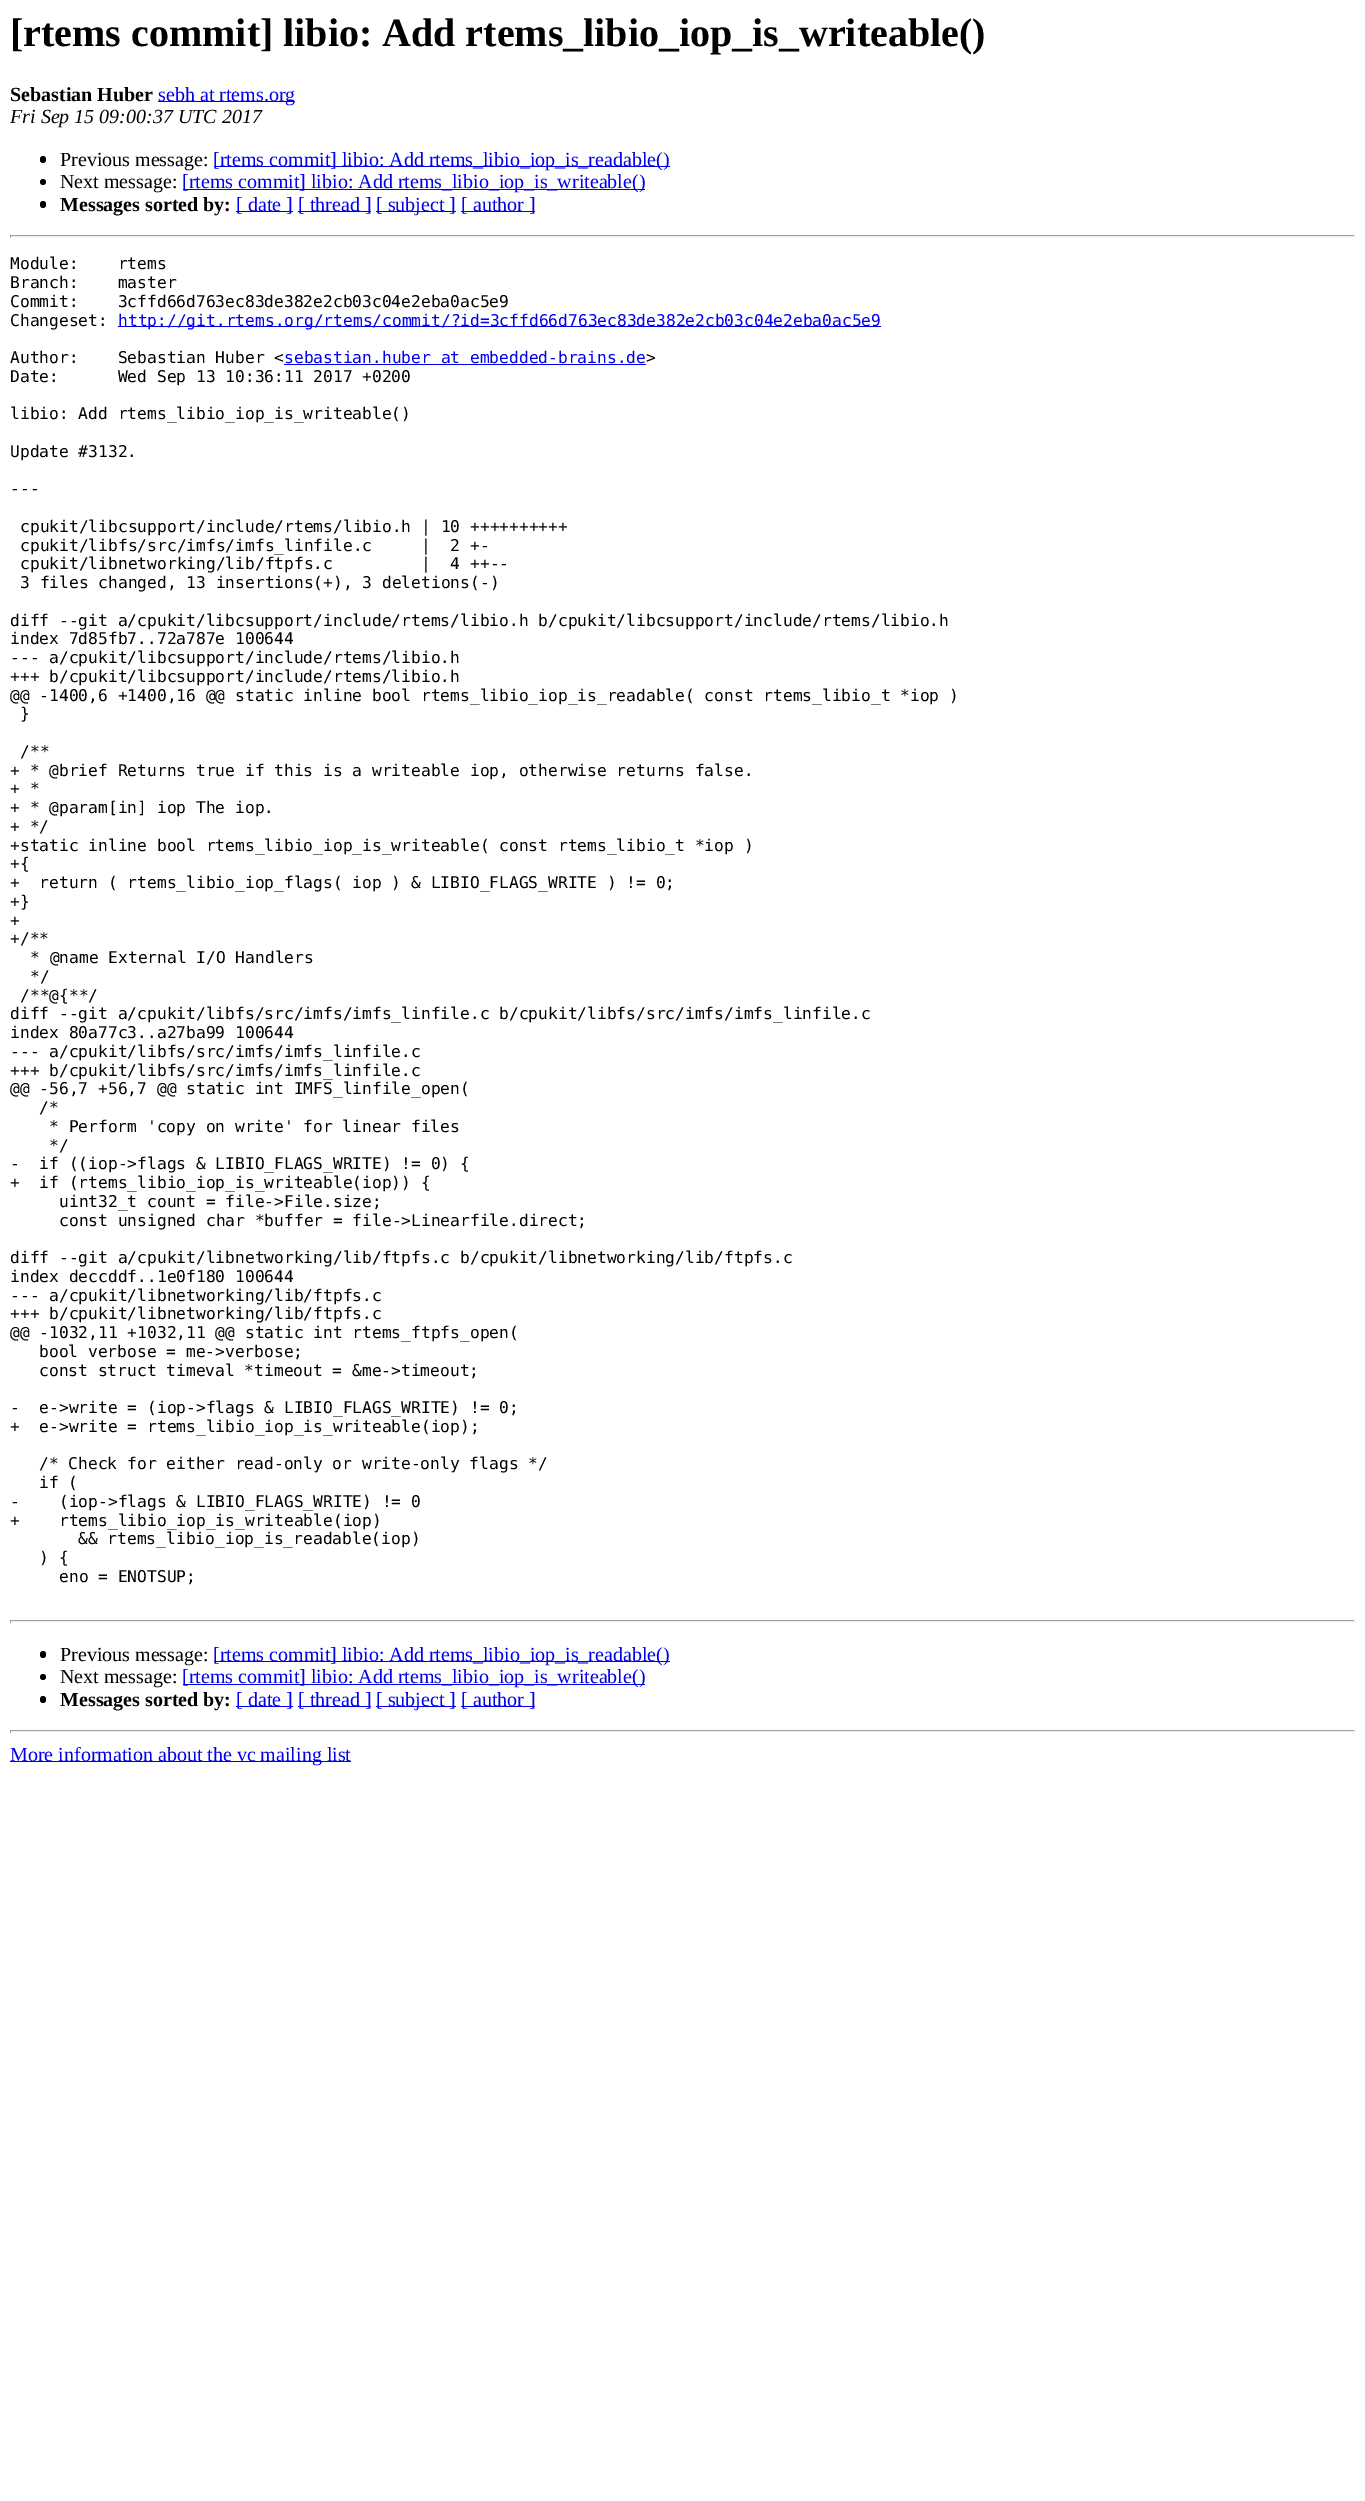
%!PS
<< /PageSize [1365 2501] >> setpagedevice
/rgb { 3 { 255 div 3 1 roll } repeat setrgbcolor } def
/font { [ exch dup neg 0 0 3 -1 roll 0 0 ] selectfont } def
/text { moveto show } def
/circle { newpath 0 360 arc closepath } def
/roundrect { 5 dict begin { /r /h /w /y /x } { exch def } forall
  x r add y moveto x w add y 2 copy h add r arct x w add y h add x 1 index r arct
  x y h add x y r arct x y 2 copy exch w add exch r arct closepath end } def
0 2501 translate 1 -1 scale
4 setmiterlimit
255 255 255 rgb
0 0 1365 2501 rectfill
0 0 238 rgb
158 101 137 1 rectfill
0 0 0 rgb
40 156 6 7 3 roundrect fill
0 0 238 rgb
214 166 456 1 rectfill
0 0 0 rgb
43 182 3 circle fill
0 0 238 rgb
183 189 462 1 rectfill
0 0 0 rgb
40 201 6 7 3 roundrect fill
0 0 238 rgb
236 211 57 1 rectfill
298 211 73 1 rectfill
376 211 80 1 rectfill
461 211 74 1 rectfill
159 159 159 rgb
10 235 1345 1 rectfill
238 238 238 rgb
1354 235 1 3 rectfill
10 236 1345 1 rectfill
159 159 159 rgb
10 235 1 3 rectfill
0 0 238 rgb
118 326 763 1 rectfill
284 364 362 1 rectfill
159 159 159 rgb
10 1620 1345 1 rectfill
238 238 238 rgb
1354 1620 1 3 rectfill
10 1621 1345 1 rectfill
159 159 159 rgb
10 1620 1 3 rectfill
0 0 0 rgb
40 1651 6 7 3 roundrect fill
0 0 238 rgb
214 1661 456 1 rectfill
0 0 0 rgb
43 1677 3 circle fill
0 0 238 rgb
183 1684 462 1 rectfill
0 0 0 rgb
40 1696 6 7 3 roundrect fill
0 0 238 rgb
236 1706 57 1 rectfill
298 1706 73 1 rectfill
376 1706 80 1 rectfill
461 1706 74 1 rectfill
159 159 159 rgb
10 1730 1345 1 rectfill
238 238 238 rgb
1354 1730 1 3 rectfill
10 1731 1345 1 rectfill
159 159 159 rgb
10 1730 1 3 rectfill
0 0 238 rgb
10 1761 341 1 rectfill
/LiberationSerif-Bold 40 font
0 0 0 rgb
([rtems commit] libio: Add rtems_libio_iop_is_writeable\(\)) 10 46 text
/LiberationSerif-Bold 20 font
(Sebastian Huber) 10 101 text
/LiberationSerif-Regular 20 font
0 0 238 rgb
(sebh at rtems.org) 158 101 text
/LiberationSerif-Italic 20 font
0 0 0 rgb
(Fri Sep 15 09:00:37 UTC 2017) 10 123 text
/LiberationSerif-Regular 20 font
(Previous message:) 60 166 text
0 0 238 rgb
([rtems commit] libio: Add rtems_libio_iop_is_readable\(\)) 213 166 text
0 0 0 rgb
(Next message:) 60 188 text
0 0 238 rgb
([rtems commit] libio: Add rtems_libio_iop_is_writeable\(\)) 182 188 text
/LiberationSerif-Bold 20 font
0 0 0 rgb
(Messages sorted by:) 60 211 text
/LiberationSerif-Regular 20 font
0 0 238 rgb
([ date ]) 236 211 text
([ thread ]) 298 211 text
([ subject ]) 376 211 text
([ author ]) 461 211 text
/DejaVuSansMono-Regular 16.25 font
0 0 0 rgb
(Module:    rtems) 10 269 text
(Branch:    master) 10 288 text
(Commit:    3cffd66d763ec83de382e2cb03c04e2eba0ac5e9) 10 307 text
(Changeset:) 10 326 text
0 0 238 rgb
(http://git.rtems.org/rtems/commit/?id=3cffd66d763ec83de382e2cb03c04e2eba0ac5e9) 118 326 text
0 0 0 rgb
(Author:    Sebastian Huber <) 10 363 text
0 0 238 rgb
(sebastian.huber at embedded-brains.de) 284 363 text
0 0 0 rgb
(>) 646 363 text
(Date:      Wed Sep 13 10:36:11 2017 +0200) 10 382 text
(libio: Add rtems_libio_iop_is_writeable\(\)) 10 419 text
(Update #3132.) 10 457 text
(---) 10 494 text
(cpukit/libcsupport/include/rtems/libio.h | 10 ++++++++++) 20 532 text
(cpukit/libfs/src/imfs/imfs_linfile.c     |  2 +-) 20 551 text
(cpukit/libnetworking/lib/ftpfs.c         |  4 ++--) 20 569 text
(3 files changed, 13 insertions\(+\), 3 deletions\(-\)) 20 588 text
(diff --git a/cpukit/libcsupport/include/rtems/libio.h b/cpukit/libcsupport/include/rtems/libio.h) 10 626 text
(index 7d85fb7..72a787e 100644) 10 644 text
(--- a/cpukit/libcsupport/include/rtems/libio.h) 10 663 text
(+++ b/cpukit/libcsupport/include/rtems/libio.h) 10 682 text
(@@ -1400,6 +1400,16 @@ static inline bool rtems_libio_iop_is_readable\( const rtems_libio_t *iop \)) 10 701 text
(}) 20 719 text
(/**) 20 757 text
(+ * @brief Returns true if this is a writeable iop, otherwise returns false.) 10 776 text
(+ *) 10 794 text
(+ * @param[in] iop The iop.) 10 813 text
(+ */) 10 832 text
(+static inline bool rtems_libio_iop_is_writeable\( const rtems_libio_t *iop \)) 10 851 text
(+{) 10 869 text
(+  return \( rtems_libio_iop_flags\( iop \) & LIBIO_FLAGS_WRITE \) != 0;) 10 888 text
(+}) 10 907 text
(+) 10 926 text
(+/**) 10 944 text
(* @name External I/O Handlers) 30 963 text
(*/) 30 982 text
(/**@{**/) 20 1001 text
(diff --git a/cpukit/libfs/src/imfs/imfs_linfile.c b/cpukit/libfs/src/imfs/imfs_linfile.c) 10 1019 text
(index 80a77c3..a27ba99 100644) 10 1038 text
(--- a/cpukit/libfs/src/imfs/imfs_linfile.c) 10 1057 text
(+++ b/cpukit/libfs/src/imfs/imfs_linfile.c) 10 1076 text
(@@ -56,7 +56,7 @@ static int IMFS_linfile_open\() 10 1094 text
(/*) 39 1113 text
(* Perform 'copy on write' for linear files) 49 1132 text
(*/) 49 1151 text
(-  if \(\(iop->flags & LIBIO_FLAGS_WRITE\) != 0\) {) 10 1169 text
(+  if \(rtems_libio_iop_is_writeable\(iop\)\) {) 10 1188 text
(uint32_t count = file->File.size;) 59 1207 text
(const unsigned char *buffer = file->Linearfile.direct;) 59 1226 text
(diff --git a/cpukit/libnetworking/lib/ftpfs.c b/cpukit/libnetworking/lib/ftpfs.c) 10 1263 text
(index deccddf..1e0f180 100644) 10 1282 text
(--- a/cpukit/libnetworking/lib/ftpfs.c) 10 1301 text
(+++ b/cpukit/libnetworking/lib/ftpfs.c) 10 1319 text
(@@ -1032,11 +1032,11 @@ static int rtems_ftpfs_open\() 10 1338 text
(bool verbose = me->verbose;) 39 1357 text
(const struct timeval *timeout = &me->timeout;) 39 1376 text
(-  e->write = \(iop->flags & LIBIO_FLAGS_WRITE\) != 0;) 10 1413 text
(+  e->write = rtems_libio_iop_is_writeable\(iop\);) 10 1432 text
(/* Check for either read-only or write-only flags */) 39 1469 text
(if \() 39 1488 text
(-    \(iop->flags & LIBIO_FLAGS_WRITE\) != 0) 10 1507 text
(+    rtems_libio_iop_is_writeable\(iop\)) 10 1526 text
(&& rtems_libio_iop_is_readable\(iop\)) 78 1544 text
(\) {) 39 1563 text
(eno = ENOTSUP;) 59 1582 text
/LiberationSerif-Regular 20 font
(Previous message:) 60 1661 text
0 0 238 rgb
([rtems commit] libio: Add rtems_libio_iop_is_readable\(\)) 213 1661 text
0 0 0 rgb
(Next message:) 60 1683 text
0 0 238 rgb
([rtems commit] libio: Add rtems_libio_iop_is_writeable\(\)) 182 1683 text
/LiberationSerif-Bold 20 font
0 0 0 rgb
(Messages sorted by:) 60 1706 text
/LiberationSerif-Regular 20 font
0 0 238 rgb
([ date ]) 236 1706 text
([ thread ]) 298 1706 text
([ subject ]) 376 1706 text
([ author ]) 461 1706 text
(More information about the vc mailing list) 10 1761 text
showpage
